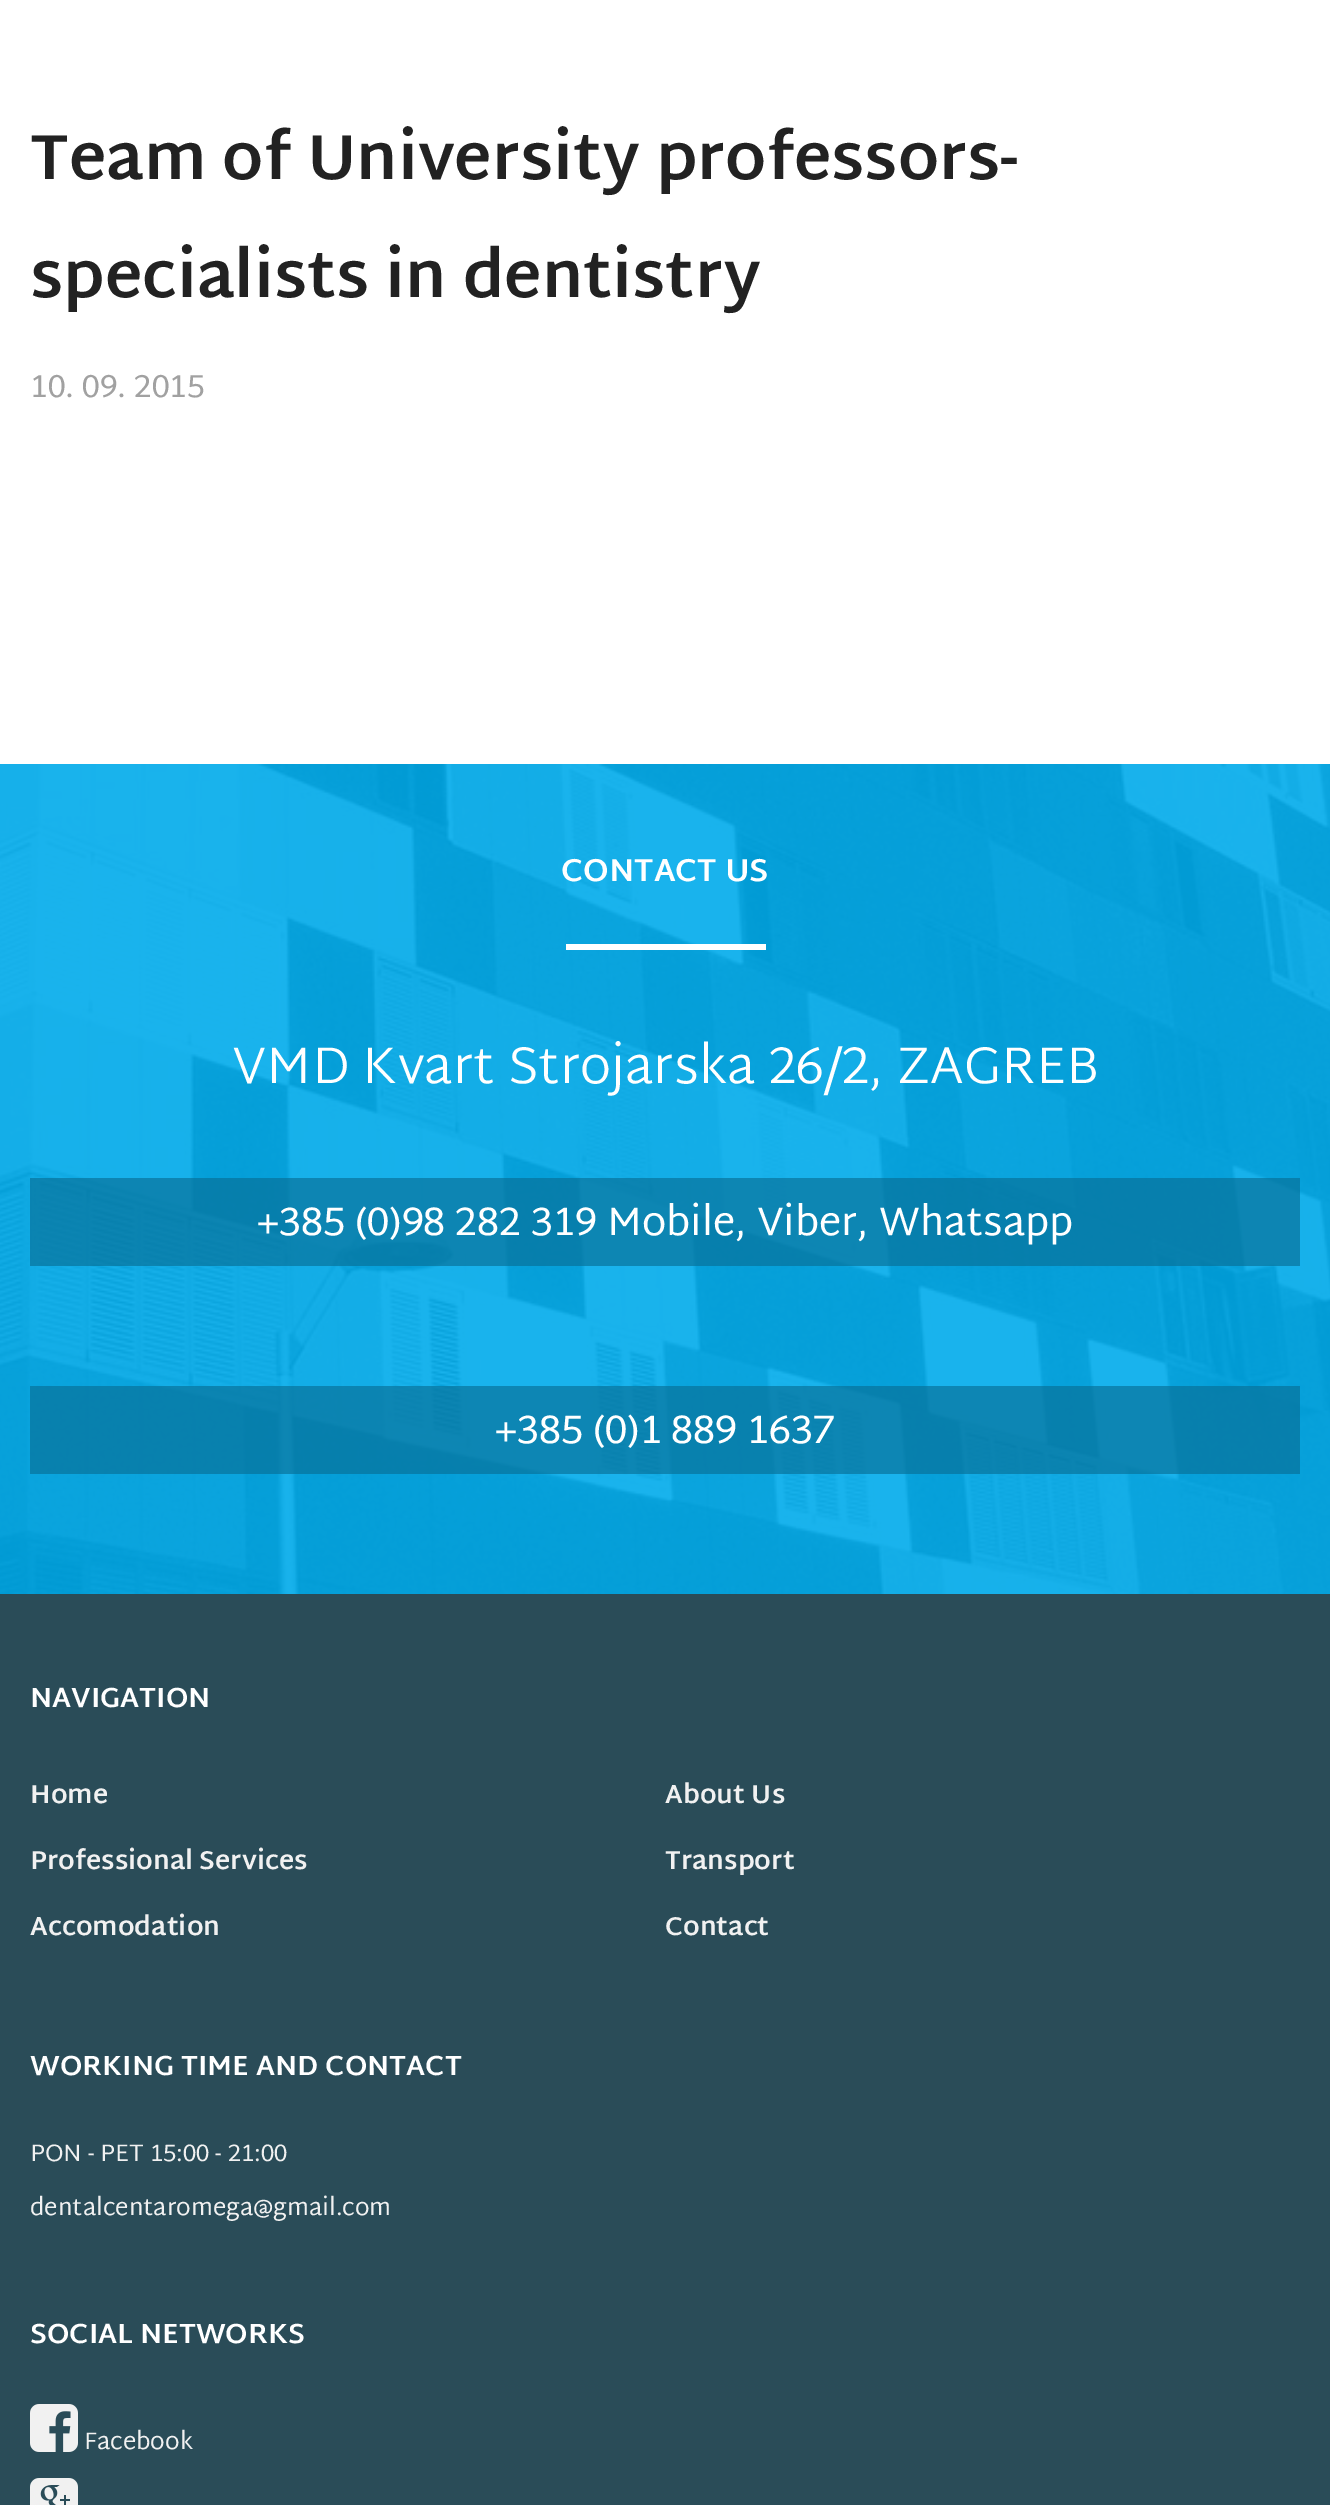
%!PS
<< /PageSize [1330 2505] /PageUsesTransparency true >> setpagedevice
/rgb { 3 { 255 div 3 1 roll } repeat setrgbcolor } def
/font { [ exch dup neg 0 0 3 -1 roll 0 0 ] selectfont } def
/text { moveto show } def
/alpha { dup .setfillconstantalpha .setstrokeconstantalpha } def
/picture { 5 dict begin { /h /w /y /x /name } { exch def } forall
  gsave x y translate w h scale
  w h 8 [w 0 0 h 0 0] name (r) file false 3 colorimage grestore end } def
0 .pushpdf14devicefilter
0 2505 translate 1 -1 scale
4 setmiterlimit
255 255 255 rgb
0 0 1330 2505 rectfill
(img_01.rgb) 0 764 1330 830 picture
566 944 200 6 rectfill
0.65 alpha
7 110 149 rgb
30 1178 1270 88 rectfill
30 1386 1270 88 rectfill
1 alpha
42 76 88 rgb
0 1594 1330 911 rectfill
(img_02.rgb) 30 2404 48 48 picture
(img_03.rgb) 30 2478 48 27 picture
/MartelSans-Bold 64 font
34 34 34 rgb
(Team of University professors-) 30 179 text
(specialists in dentistry) 30 297 text
/MartelSans-Regular 32 font
161 161 161 rgb
(10. 09. 2015) 30 397 text
/MartelSans-Bold 32 font
255 255 255 rgb
(CONTACT US) 561 881 text
/MartelSans-Light 52 font
(VMD Kvart Strojarska 26/2, ZAGREB) 232 1083 text
/MartelSans-Regular 40 font
(+385 \(0\)98 282 319 Mobile, Viber, Whatsapp) 257 1235 text
(+385 \(0\)1 889 1637) 495 1443 text
/MartelSans-Bold 28 font
(NAVIGATION) 30 1707 text
/MartelSans-Bold 26 font
241 241 241 rgb
(Home) 30 1803 text
(About Us) 665 1803 text
(Professional Services) 30 1869 text
(Transport) 665 1869 text
(Accomodation) 30 1935 text
(Contact) 665 1935 text
/MartelSans-Bold 28 font
255 255 255 rgb
(WORKING TIME AND CONTACT) 30 2075 text
/MartelSans-Regular 24 font
241 241 241 rgb
(PON - PET 15:00 - 21:00) 30 2161 text
(dentalcentaromega@gmail.com) 30 2215 text
/MartelSans-Bold 28 font
255 255 255 rgb
(SOCIAL NETWORKS) 30 2343 text
/MartelSans-Regular 24 font
241 241 241 rgb
(Facebook) 84 2449 text
.poppdf14devicefilter showpage
